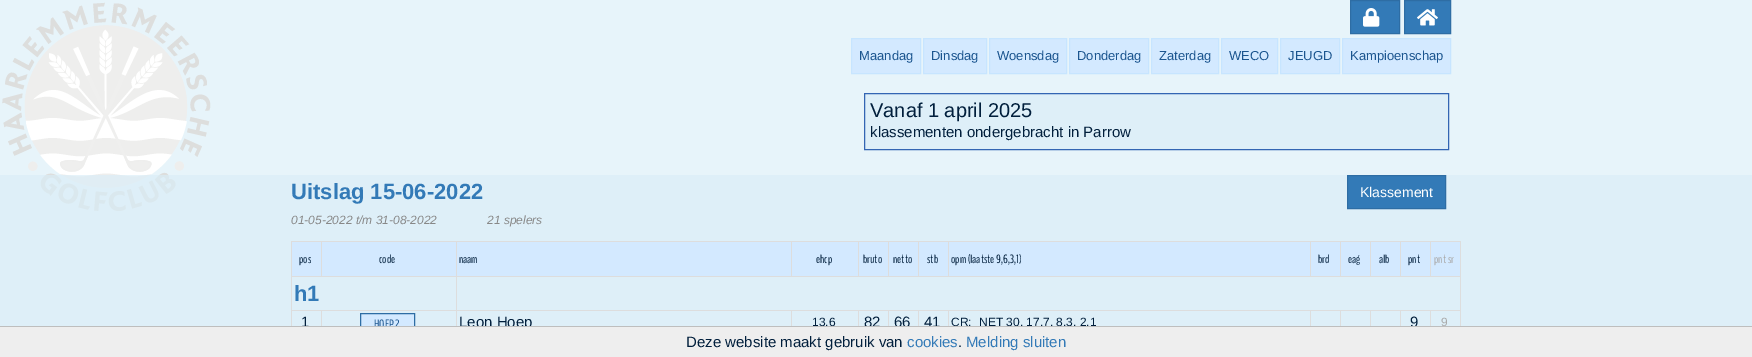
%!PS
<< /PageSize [1752 357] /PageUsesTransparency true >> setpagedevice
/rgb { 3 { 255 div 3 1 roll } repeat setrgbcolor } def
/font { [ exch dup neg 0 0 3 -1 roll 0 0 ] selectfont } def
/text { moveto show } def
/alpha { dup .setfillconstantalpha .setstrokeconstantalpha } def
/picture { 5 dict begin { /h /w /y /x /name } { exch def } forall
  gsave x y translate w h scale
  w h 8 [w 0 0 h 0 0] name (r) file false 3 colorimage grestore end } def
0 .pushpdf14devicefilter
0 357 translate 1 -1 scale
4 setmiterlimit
231 244 250 rgb
0 0 1752 357 rectfill
(img_01.rgb) 2 2 209 209 picture
51 122 183 rgb
1350.5 0.5 moveto 49 0 rlineto 0 33 rlineto -49 0 rlineto closepath gsave fill grestore
46 109 164 rgb
stroke
(img_02.rgb) 1363 8 17 19 picture
51 122 183 rgb
1404.5 0.5 moveto 46 0 rlineto 0 33 rlineto -46 0 rlineto closepath gsave fill grestore
46 109 164 rgb
stroke
(img_03.rgb) 1417 9 21 17 picture
211 233 255 rgb
851.5 38.5 moveto 69 0 rlineto 0 35 rlineto -69 0 rlineto closepath gsave fill grestore
199 229 255 rgb
stroke
211 233 255 rgb
923.5 38.5 moveto 63 0 rlineto 0 35 rlineto -63 0 rlineto closepath gsave fill grestore
199 229 255 rgb
stroke
211 233 255 rgb
989.5 38.5 moveto 77 0 rlineto 0 35 rlineto -77 0 rlineto closepath gsave fill grestore
199 229 255 rgb
stroke
211 233 255 rgb
1069.5 38.5 moveto 79 0 rlineto 0 35 rlineto -79 0 rlineto closepath gsave fill grestore
199 229 255 rgb
stroke
211 233 255 rgb
1151.5 38.5 moveto 67 0 rlineto 0 35 rlineto -67 0 rlineto closepath gsave fill grestore
199 229 255 rgb
stroke
211 233 255 rgb
1221.5 38.5 moveto 56 0 rlineto 0 35 rlineto -56 0 rlineto closepath gsave fill grestore
199 229 255 rgb
stroke
211 233 255 rgb
1280.5 38.5 moveto 59 0 rlineto 0 35 rlineto -59 0 rlineto closepath gsave fill grestore
199 229 255 rgb
stroke
211 233 255 rgb
1342.5 38.5 moveto 108 0 rlineto 0 35 rlineto -108 0 rlineto closepath gsave fill grestore
199 229 255 rgb
stroke
222 239 248 rgb
864.5 93.5 moveto 584 0 rlineto 0 56 rlineto -584 0 rlineto closepath gsave fill grestore
51 101 179 rgb
stroke
0.65 alpha
217 237 247 rgb
0 175 1752 151 rectfill
1 alpha
51 122 183 rgb
1347.5 175.5 moveto 98 0 rlineto 0 33 rlineto -98 0 rlineto closepath gsave fill grestore
46 109 164 rgb
stroke
221 221 221 rgb
291 241 1170 1 rectfill
1460 241 1 85 rectfill
291 241 1 85 rectfill
211 233 255 rgb
292 242 29 34 rectfill
322 242 134 34 rectfill
221 221 221 rgb
291 276 166 1 rectfill
321 241 1 36 rectfill
211 233 255 rgb
457 242 334 34 rectfill
221 221 221 rgb
1430 276 31 1 rectfill
1430 241 1 36 rectfill
1400 276 31 1 rectfill
1400 241 1 36 rectfill
1370 276 31 1 rectfill
1370 241 1 36 rectfill
1340 276 31 1 rectfill
1340 241 1 36 rectfill
1310 276 31 1 rectfill
1310 241 1 36 rectfill
948 276 363 1 rectfill
948 241 1 36 rectfill
918 276 31 1 rectfill
918 241 1 36 rectfill
888 276 31 1 rectfill
888 241 1 36 rectfill
858 276 31 1 rectfill
858 241 1 36 rectfill
791 276 68 1 rectfill
791 241 1 36 rectfill
1430 310 31 1 rectfill
1430 310 1 24 rectfill
1400 310 31 1 rectfill
1400 310 1 24 rectfill
1370 310 31 1 rectfill
1370 310 1 24 rectfill
1340 310 31 1 rectfill
1340 310 1 24 rectfill
1310 310 31 1 rectfill
1310 310 1 24 rectfill
948 310 363 1 rectfill
948 310 1 24 rectfill
918 310 31 1 rectfill
918 310 1 24 rectfill
888 310 31 1 rectfill
888 310 1 24 rectfill
858 310 31 1 rectfill
858 310 1 24 rectfill
791 310 68 1 rectfill
791 310 1 24 rectfill
456 310 336 1 rectfill
456 310 1 24 rectfill
321 310 136 1 rectfill
456 276 1 35 rectfill
456 276 336 1 rectfill
456 241 1 36 rectfill
211 233 255 rgb
792 242 66 34 rectfill
859 242 29 34 rectfill
889 242 29 34 rectfill
919 242 29 34 rectfill
949 242 361 34 rectfill
1311 242 29 34 rectfill
1341 242 29 34 rectfill
1371 242 29 34 rectfill
1401 242 29 34 rectfill
1431 242 29 34 rectfill
221 221 221 rgb
321 310 1 24 rectfill
291 310 31 1 rectfill
211 233 255 rgb
361 314 53 12 rectfill
46 109 164 rgb
360.5 313.5 54 19 rectstroke
/LiberationSans-Regular 13 font
27 85 143 rgb
(Maandag) 859 60 text
(Dinsdag) 931 60 text
(Woensdag) 997 60 text
(Donderdag) 1077 60 text
(Zaterdag) 1159 60 text
(WECO) 1229 60 text
(JEUGD) 1288 60 text
(Kampioenschap) 1350 60 text
/LiberationSans-Regular 20 font
1 31 60 rgb
(Vanaf 1 april 2025) 870 117 text
/LiberationSans-Regular 15 font
(klassementen ondergebracht in Parrow) 870 137 text
/LiberationSans-Bold 22 font
51 122 183 rgb
(Uitslag 15-06-2022) 291 199 text
/LiberationSans-Italic 12 font
136 136 136 rgb
(01-05-2022 t/m 31-08-2022               21 spelers) 291 224 text
/LiberationSans-Regular 14 font
255 255 255 rgb
(Klassement) 1360 197 text
/BenchNine-Regular 12 font
1 31 60 rgb
(pos) 299 263 text
(code) 379 263 text
(naam) 459 263 text
(ehcp) 816 263 text
(bruto) 863 263 text
(netto) 893 263 text
(stb) 927 263 text
(opm \(laatste 9,6,3,1\)) 951 263 text
(brd) 1318 263 text
(eag) 1348 263 text
(alb) 1379 263 text
(pnt) 1408 263 text
170 170 170 rgb
(pnt sr) 1434 263 text
/LiberationSans-Bold 22 font
51 122 183 rgb
(h1) 294 301 text
/LiberationSans-Regular 15 font
1 31 60 rgb
(1) 301 327 text
/BenchNine-Regular 12 font
27 85 143 rgb
(HOEP 2) 374 328 text
/LiberationSans-Regular 15 font
1 31 60 rgb
(Leon Hoep) 459 327 text
/LiberationSans-Regular 12 font
(13.6) 812 326 text
/LiberationSans-Regular 15 font
(82) 864 327 text
(66) 894 327 text
(41) 924 327 text
/LiberationSans-Regular 12 font
(CR:) 951 326 text
(NET 30, 17.7, 8.3, 2.1) 979 326 text
/LiberationSans-Regular 15 font
(9) 1410 327 text
/LiberationSans-Regular 12 font
170 170 170 rgb
(9) 1441 326 text
238 238 238 rgb
0 327 1752 30 rectfill
190 190 190 rgb
0 326 1752 1 rectfill
/LiberationSans-Regular 15 font
1 31 60 rgb
(Deze website maakt gebruik van) 686 347 text
51 122 183 rgb
(cookies) 907 347 text
1 31 60 rgb
(.) 958 347 text
51 122 183 rgb
(Melding sluiten) 966 347 text
.poppdf14devicefilter showpage
